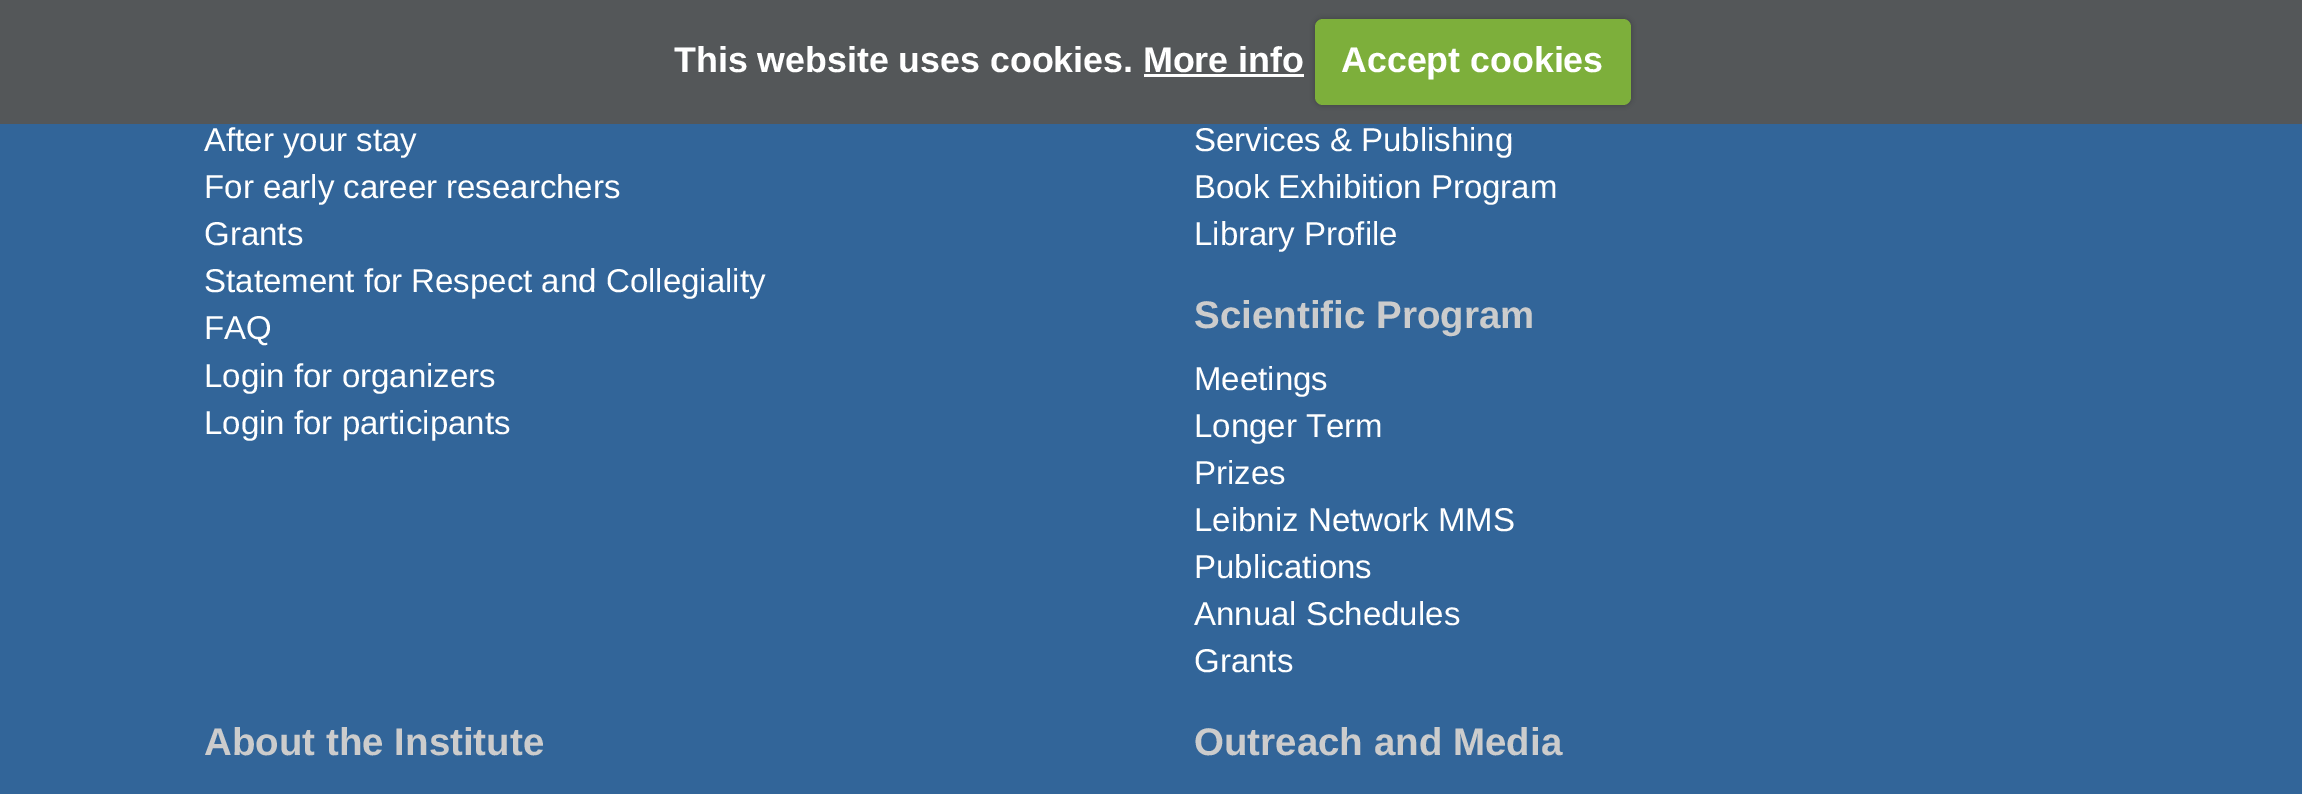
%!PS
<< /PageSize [2302 794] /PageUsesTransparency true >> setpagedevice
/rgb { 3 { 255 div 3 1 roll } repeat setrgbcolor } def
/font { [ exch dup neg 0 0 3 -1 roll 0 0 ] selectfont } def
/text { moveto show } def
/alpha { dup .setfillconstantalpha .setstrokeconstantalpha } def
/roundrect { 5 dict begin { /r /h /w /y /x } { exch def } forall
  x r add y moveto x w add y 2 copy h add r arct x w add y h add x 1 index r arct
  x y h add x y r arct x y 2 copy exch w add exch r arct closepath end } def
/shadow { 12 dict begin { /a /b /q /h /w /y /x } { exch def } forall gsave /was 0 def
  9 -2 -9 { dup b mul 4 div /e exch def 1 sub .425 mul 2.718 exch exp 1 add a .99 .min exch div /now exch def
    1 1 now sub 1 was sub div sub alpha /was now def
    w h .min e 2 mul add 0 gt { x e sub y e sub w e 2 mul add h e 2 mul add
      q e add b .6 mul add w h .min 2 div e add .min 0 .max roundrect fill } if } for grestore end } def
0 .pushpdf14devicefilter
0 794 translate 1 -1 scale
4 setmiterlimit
50 101 153 rgb
0 0 2302 794 rectfill
84 87 89 rgb
0 0 2302 124 rectfill
0 0 0 rgb
1315 19 316 86 8 3 0.25 shadow
125 175 59 rgb
1315 19 316 86 8 roundrect fill
255 255 255 rgb
1144 74 160 3 rectfill
/LiberationSans-Bold 35.75 font
(This website uses cookies. More info) 674 72 text
(Accept cookies) 1341 72 text
/LiberationSans-Regular 33 font
(After your stay) 204 151 text
(For early career researchers) 204 198 text
(Grants) 204 245 text
(Statement for Respect and Collegiality) 204 292 text
(FAQ) 204 339 text
(Login for organizers) 204 387 text
(Login for participants) 204 434 text
(Services & Publishing) 1194 151 text
(Book Exhibition Program) 1194 198 text
(Library Profile) 1194 245 text
/LiberationSans-Bold 38.5 font
204 204 204 rgb
(Scientific Program) 1194 328 text
/LiberationSans-Regular 33 font
255 255 255 rgb
(Meetings) 1194 390 text
(Longer Term) 1194 437 text
(Prizes) 1194 484 text
(Leibniz Network MMS) 1194 531 text
(Publications) 1194 578 text
(Annual Schedules) 1194 625 text
(Grants) 1194 672 text
/LiberationSans-Bold 38.5 font
204 204 204 rgb
(About the Institute) 204 755 text
(Outreach and Media) 1194 755 text
.poppdf14devicefilter showpage
